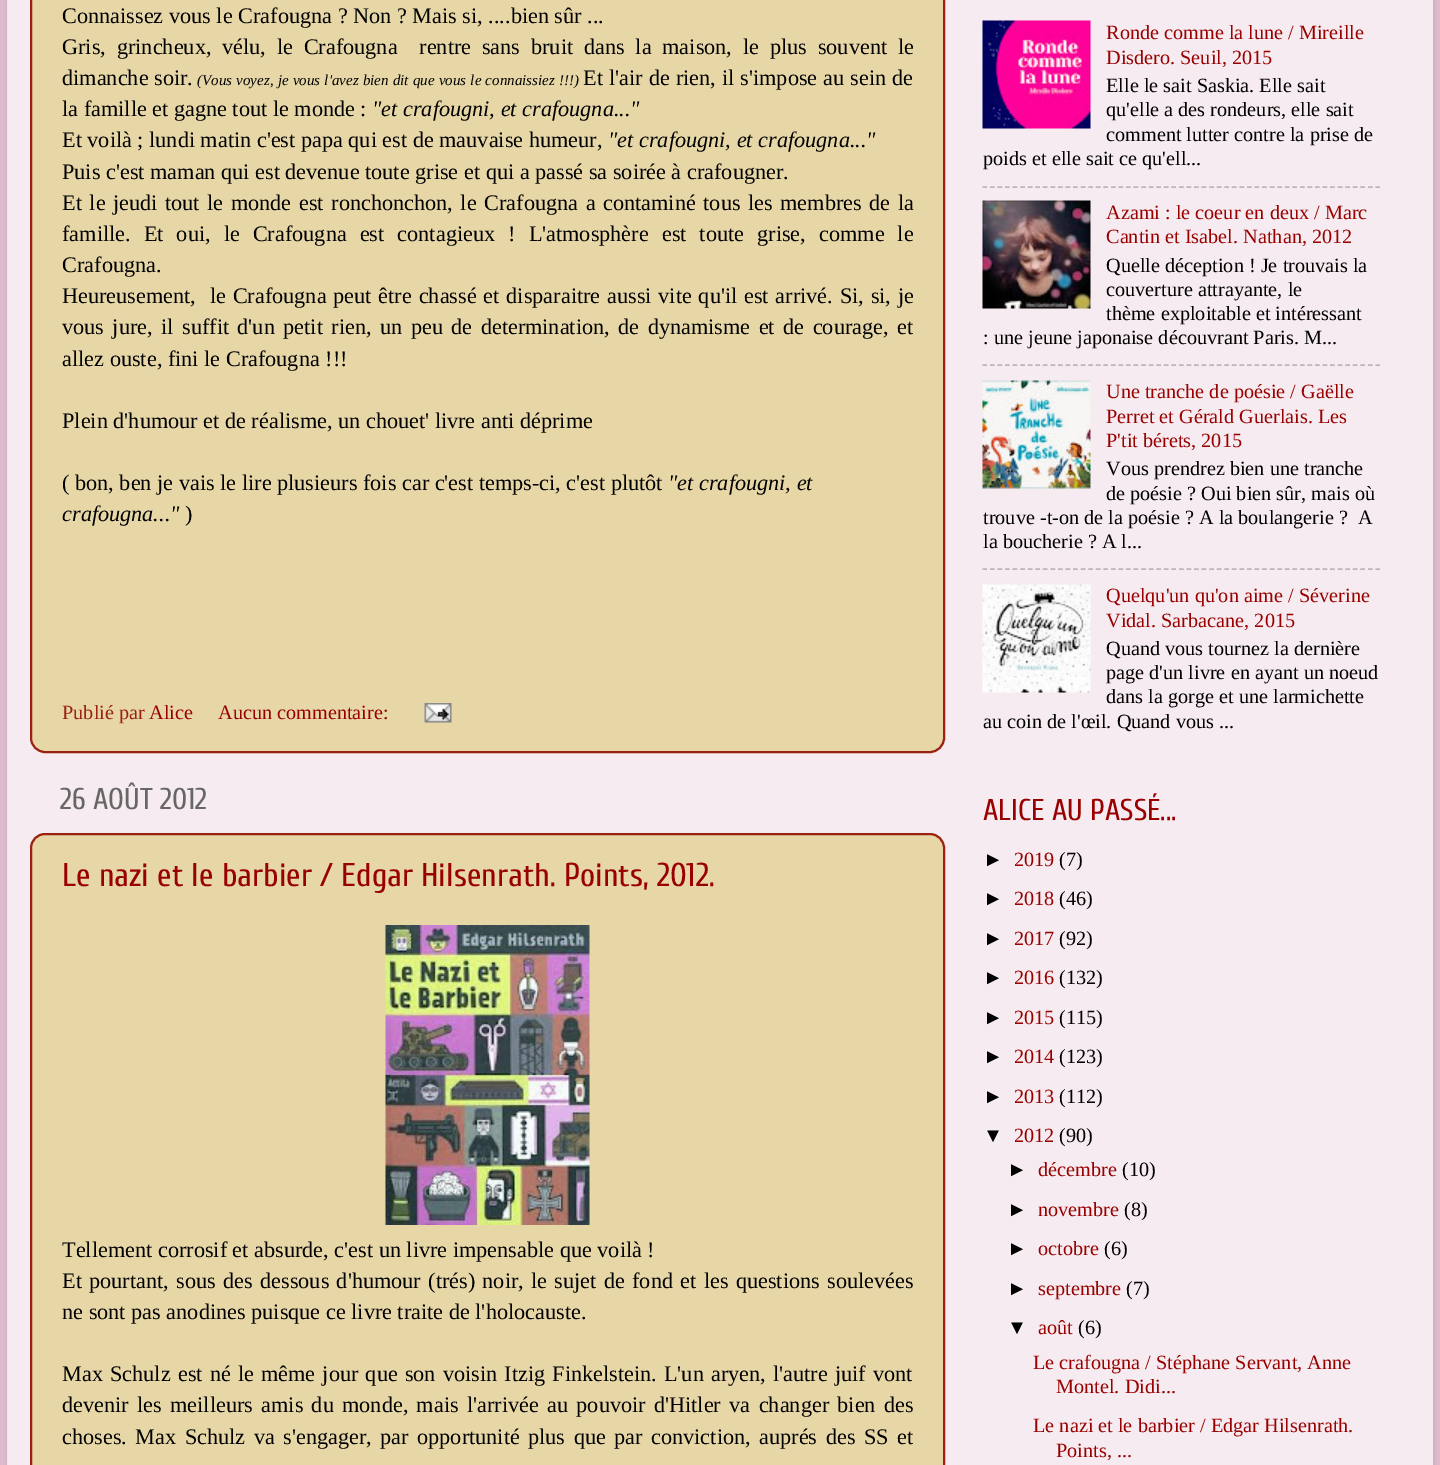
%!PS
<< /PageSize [1440 1465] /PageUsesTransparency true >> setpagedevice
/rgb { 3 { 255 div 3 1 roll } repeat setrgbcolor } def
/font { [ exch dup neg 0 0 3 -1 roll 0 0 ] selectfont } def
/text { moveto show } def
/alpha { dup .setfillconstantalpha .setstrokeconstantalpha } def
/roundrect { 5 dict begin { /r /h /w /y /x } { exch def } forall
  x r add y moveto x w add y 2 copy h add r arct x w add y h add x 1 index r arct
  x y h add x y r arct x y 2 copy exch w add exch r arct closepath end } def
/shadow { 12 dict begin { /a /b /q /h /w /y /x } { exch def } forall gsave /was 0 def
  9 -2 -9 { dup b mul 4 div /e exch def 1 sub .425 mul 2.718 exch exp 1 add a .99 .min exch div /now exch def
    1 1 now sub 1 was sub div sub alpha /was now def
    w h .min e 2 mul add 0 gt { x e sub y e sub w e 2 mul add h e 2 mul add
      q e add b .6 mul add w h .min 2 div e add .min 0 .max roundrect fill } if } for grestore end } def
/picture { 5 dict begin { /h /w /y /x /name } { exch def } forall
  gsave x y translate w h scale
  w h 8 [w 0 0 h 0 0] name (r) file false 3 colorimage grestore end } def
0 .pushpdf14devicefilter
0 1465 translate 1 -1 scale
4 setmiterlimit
221 187 204 rgb
0 0 1440 1465 rectfill
gsave
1 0 moveto 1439 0 rlineto 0 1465 rlineto -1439 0 rlineto closepath 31 -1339 moveto 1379 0 rlineto 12.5 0 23 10.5 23 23 rcurveto 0 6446 rlineto 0 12.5 -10.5 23 -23 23 rcurveto -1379 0 rlineto -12.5 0 -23 -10.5 -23 -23 rcurveto 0 -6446 rlineto 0 -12.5 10.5 -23 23 -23 rcurveto closepath eoclip newpath
0 0 0 rgb
8 -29 1425 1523 23 2 0.15 shadow
grestore
0.7 alpha
255 255 255 rgb
7 0 1426 1465 rectfill
1 alpha
231 215 167 rgb
31 -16 913 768 14 roundrect gsave fill grestore
153 34 17 rgb
2 setlinewidth
stroke
(img_01.rgb) 424 703 28 20 picture
231 215 167 rgb
31 834 913 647 14 roundrect gsave fill grestore
153 34 17 rgb
stroke
(img_02.rgb) 385 925 205 300 picture
(img_03.rgb) 982 20 109 109 picture
186 181 184 rgb
1.5 setlinewidth
[4.5 3.06] 0 setdash
982.5 187 moveto 397.5 0 rlineto stroke
(img_04.rgb) 982 200 109 109 picture
982.5 365 moveto 397.5 0 rlineto stroke
(img_05.rgb) 982 380 109 109 picture
982.5 569 moveto 397.5 0 rlineto stroke
(img_06.rgb) 982 584 109 109 picture
/LiberationSerif-Regular 22.25 font
0 0 0 rgb
(Connaissez vous le Crafougna ? Non ? Mais si, ....bien sûr ...) 62 23 text
62 54 moveto 5.25 0 32 (Gris, grincheux, vélu, le Crafougna  rentre sans bruit dans la maison, le plus souvent le) widthshow
(dimanche soir.) 62 85 text
/LiberationSerif-Italic 15 font
197 85 moveto 0.5 0 32 (\(Vous voyez, je vous l'avez bien dit que vous le connaissiez !!!\)) widthshow
/LiberationSerif-Regular 22.25 font
583 85 moveto 0.5 0 32 (Et l'air de rien, il s'impose au sein de) widthshow
(la famille et gagne tout le monde :) 62 116 text
/LiberationSerif-Italic 22.25 font
("et crafougni, et crafougna...") 372 116 text
/LiberationSerif-Regular 22.25 font
(Et voilà ; lundi matin c'est papa qui est de mauvaise humeur,) 62 147 text
/LiberationSerif-Italic 22.25 font
("et crafougni, et crafougna...") 608 147 text
/LiberationSerif-Regular 22.25 font
(Puis c'est maman qui est devenue toute grise et qui a passé sa soirée à crafougner.) 62 179 text
62 210 moveto 2 0 32 (Et le jeudi tout le monde est ronchonchon, le Crafougna a contaminé tous les membres de la) widthshow
62 241 moveto 7.5 0 32 (famille. Et oui, le Crafougna est contagieux ! L'atmosphère est toute grise, comme le) widthshow
(Crafougna.) 62 272 text
62 303 moveto 1.25 0 32 (Heureusement,  le Crafougna peut être chassé et disparaitre aussi vite qu'il est arrivé. Si, si, je) widthshow
62 334 moveto 2.9 0 32 (vous jure, il suffit d'un petit rien, un peu de determination, de dynamisme et de courage, et) widthshow
(allez ouste, fini le Crafougna !!!) 62 366 text
(Plein d'humour et de réalisme, un chouet' livre anti déprime) 62 428 text
(\( bon, ben je vais le lire plusieurs fois car c'est temps-ci, c'est plutôt) 62 490 text
/LiberationSerif-Italic 22.25 font
("et crafougni, et) 668 490 text
(crafougna...") 62 521 text
/LiberationSerif-Regular 22.25 font
(\)) 185 521 text
/LiberationSerif-Regular 20.25 font
153 34 17 rgb
(Publié par) 62 719 text
153 0 0 rgb
(Alice) 149 719 text
(Aucun commentaire:) 218 719 text
/Cuprum-Regular 30 font
102 102 102 rgb
(26 AOÛT 2012) 60 809 text
/Cuprum-Regular 33 font
153 0 0 rgb
(Le nazi et le barbier / Edgar Hilsenrath. Points, 2012.) 62 886 text
/LiberationSerif-Regular 22.25 font
0 0 0 rgb
(Tellement corrosif et absurde, c'est un livre impensable que voilà !) 62 1257 text
62 1288 moveto 1.75 0 32 (Et pourtant, sous des dessous d'humour \(trés\) noir, le sujet de fond et les questions soulevées) widthshow
(ne sont pas anodines puisque ce livre traite de l'holocauste.) 62 1319 text
62 1381 moveto 1.6 0 32 (Max Schulz est né le même jour que son voisin Itzig Finkelstein. L'un aryen, l'autre juif vont) widthshow
62 1412 moveto 2.75 0 32 (devenir les meilleurs amis du monde, mais l'arrivée au pouvoir d'Hitler va changer bien des) widthshow
62 1444 moveto 2.9 0 32 (choses. Max Schulz va s'engager, par opportunité plus que par conviction, auprés des SS et) widthshow
/LiberationSerif-Regular 20.25 font
153 0 0 rgb
(Ronde comme la lune / Mireille) 1106 39 text
(Disdero. Seuil, 2015) 1106 64 text
0 0 0 rgb
(Elle le sait Saskia. Elle sait) 1106 92 text
(qu'elle a des rondeurs, elle sait) 1106 116 text
(comment lutter contre la prise de) 1106 141 text
(poids et elle sait ce qu'ell...) 983 165 text
153 0 0 rgb
(Azami : le coeur en deux / Marc) 1106 219 text
(Cantin et Isabel. Nathan, 2012) 1106 243 text
0 0 0 rgb
(Quelle déception ! Je trouvais la) 1106 272 text
(couverture attrayante, le) 1106 296 text
(thème exploitable et intéressant) 1106 320 text
(: une jeune japonaise découvrant Paris. M...) 983 344 text
153 0 0 rgb
(Une tranche de poésie / Gaëlle) 1106 398 text
(Perret et Gérald Guerlais. Les) 1106 423 text
(P'tit bérets, 2015) 1106 447 text
0 0 0 rgb
(Vous prendrez bien une tranche) 1106 475 text
(de poésie ? Oui bien sûr, mais où) 1106 500 text
(trouve -t-on de la poésie ? A la boulangerie ?  A) 983 524 text
(la boucherie ? A l...) 983 548 text
153 0 0 rgb
(Quelqu'un qu'on aime / Séverine) 1106 602 text
(Vidal. Sarbacane, 2015) 1106 627 text
0 0 0 rgb
(Quand vous tournez la dernière) 1106 655 text
(page d'un livre en ayant un noeud) 1106 679 text
(dans la gorge et une larmichette) 1106 703 text
(au coin de l'œil. Quand vous ...) 983 728 text
/Cuprum-Regular 30 font
153 0 0 rgb
(ALICE AU PASSÉ...) 983 820 text
/LiberationSans-Regular 20.25 font
0 0 0 rgb
(►) 983 866 text
/LiberationSerif-Regular 20.25 font
153 0 0 rgb
(2019) 1014 866 text
0 0 0 rgb
(\(7\)) 1059 866 text
/LiberationSans-Regular 20.25 font
(►) 983 905 text
/LiberationSerif-Regular 20.25 font
153 0 0 rgb
(2018) 1014 905 text
0 0 0 rgb
(\(46\)) 1059 905 text
/LiberationSans-Regular 20.25 font
(►) 983 945 text
/LiberationSerif-Regular 20.25 font
153 0 0 rgb
(2017) 1014 945 text
0 0 0 rgb
(\(92\)) 1059 945 text
/LiberationSans-Regular 20.25 font
(►) 983 984 text
/LiberationSerif-Regular 20.25 font
153 0 0 rgb
(2016) 1014 984 text
0 0 0 rgb
(\(132\)) 1059 984 text
/LiberationSans-Regular 20.25 font
(►) 983 1024 text
/LiberationSerif-Regular 20.25 font
153 0 0 rgb
(2015) 1014 1024 text
0 0 0 rgb
(\(115\)) 1059 1024 text
/LiberationSans-Regular 20.25 font
(►) 983 1063 text
/LiberationSerif-Regular 20.25 font
153 0 0 rgb
(2014) 1014 1063 text
0 0 0 rgb
(\(123\)) 1059 1063 text
/LiberationSans-Regular 20.25 font
(►) 983 1103 text
/LiberationSerif-Regular 20.25 font
153 0 0 rgb
(2013) 1014 1103 text
0 0 0 rgb
(\(112\)) 1059 1103 text
/LiberationSans-Regular 20.25 font
(▼) 983 1142 text
/LiberationSerif-Regular 20.25 font
153 0 0 rgb
(2012) 1014 1142 text
0 0 0 rgb
(\(90\)) 1059 1142 text
/LiberationSans-Regular 20.25 font
(►) 1007 1176 text
/LiberationSerif-Regular 20.25 font
153 0 0 rgb
(décembre) 1038 1176 text
0 0 0 rgb
(\(10\)) 1122 1176 text
/LiberationSans-Regular 20.25 font
(►) 1007 1216 text
/LiberationSerif-Regular 20.25 font
153 0 0 rgb
(novembre) 1038 1216 text
0 0 0 rgb
(\(8\)) 1124 1216 text
/LiberationSans-Regular 20.25 font
(►) 1007 1255 text
/LiberationSerif-Regular 20.25 font
153 0 0 rgb
(octobre) 1038 1255 text
0 0 0 rgb
(\(6\)) 1104 1255 text
/LiberationSans-Regular 20.25 font
(►) 1007 1295 text
/LiberationSerif-Regular 20.25 font
153 0 0 rgb
(septembre) 1038 1295 text
0 0 0 rgb
(\(7\)) 1126 1295 text
/LiberationSans-Regular 20.25 font
(▼) 1007 1334 text
/LiberationSerif-Regular 20.25 font
153 0 0 rgb
(août) 1038 1334 text
0 0 0 rgb
(\(6\)) 1078 1334 text
153 0 0 rgb
(Le crafougna / Stéphane Servant, Anne) 1033 1369 text
(Montel. Didi...) 1056 1393 text
(Le nazi et le barbier / Edgar Hilsenrath.) 1033 1432 text
(Points, ...) 1056 1457 text
.poppdf14devicefilter showpage
